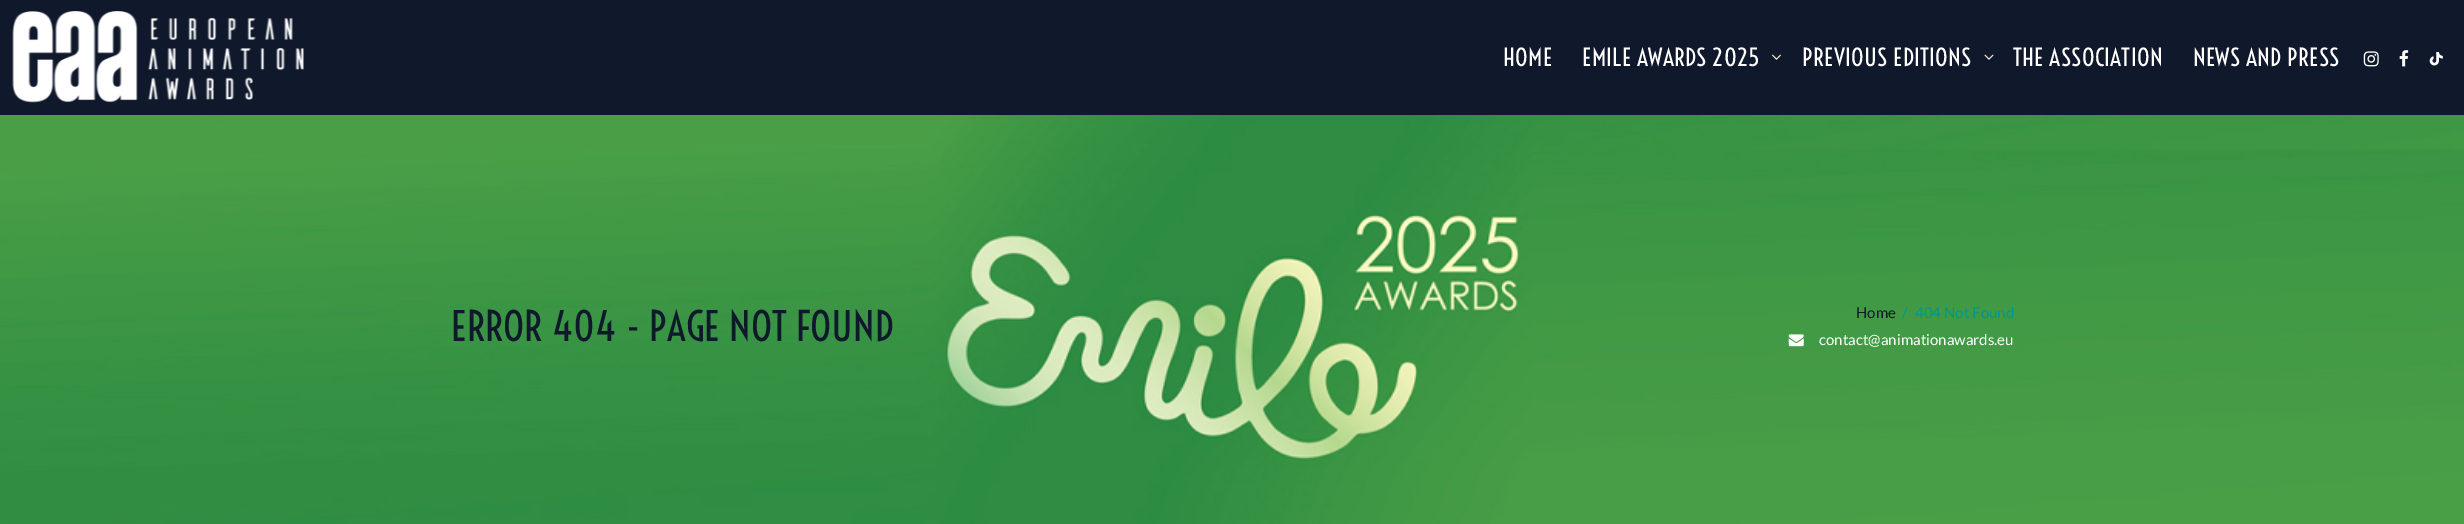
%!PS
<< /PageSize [2464 524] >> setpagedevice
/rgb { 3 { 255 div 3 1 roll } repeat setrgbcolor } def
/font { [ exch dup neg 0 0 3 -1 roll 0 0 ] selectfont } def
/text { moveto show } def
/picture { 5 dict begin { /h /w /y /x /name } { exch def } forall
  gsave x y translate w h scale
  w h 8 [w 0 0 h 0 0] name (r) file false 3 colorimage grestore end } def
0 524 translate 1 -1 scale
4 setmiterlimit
255 255 255 rgb
0 0 2464 524 rectfill
16 24 43 rgb
0 0 2464 115 rectfill
(img_01.rgb) 12 11 292 92 picture
(img_02.rgb) 1772 54 9 6 picture
(img_03.rgb) 1984 54 10 6 picture
(img_04.rgb) 2363 51 16 16 picture
(img_05.rgb) 2399 50 10 17 picture
(img_06.rgb) 2429 52 14 14 picture
(img_07.rgb) 0 115 2464 409 picture
(img_08.rgb) 1788 334 16 13 picture
/Voltaire-Regular 23.75 font
255 255 255 rgb
1503 66 moveto 0.25 0 (HOME) ashow
1582 66 moveto 0.25 0 (EMILE AWARDS 2025) ashow
1802 66 moveto 0.25 0 (PREVIOUS EDITIONS) ashow
2013 66 moveto 0.25 0 (THE ASSOCIATION) ashow
2193 66 moveto 0.25 0 (NEWS AND PRESS) ashow
/Voltaire-Regular 40 font
16 24 43 rgb
(ERROR 404 - PAGE NOT FOUND) 451 341 text
/Lato-Regular 15 font
(Home) 1856 318 text
1 150 148 rgb
(/) 1902 318 text
(404 Not Found) 1915 318 text
255 255 255 rgb
(contact@animationawards.eu) 1819 345 text
showpage
